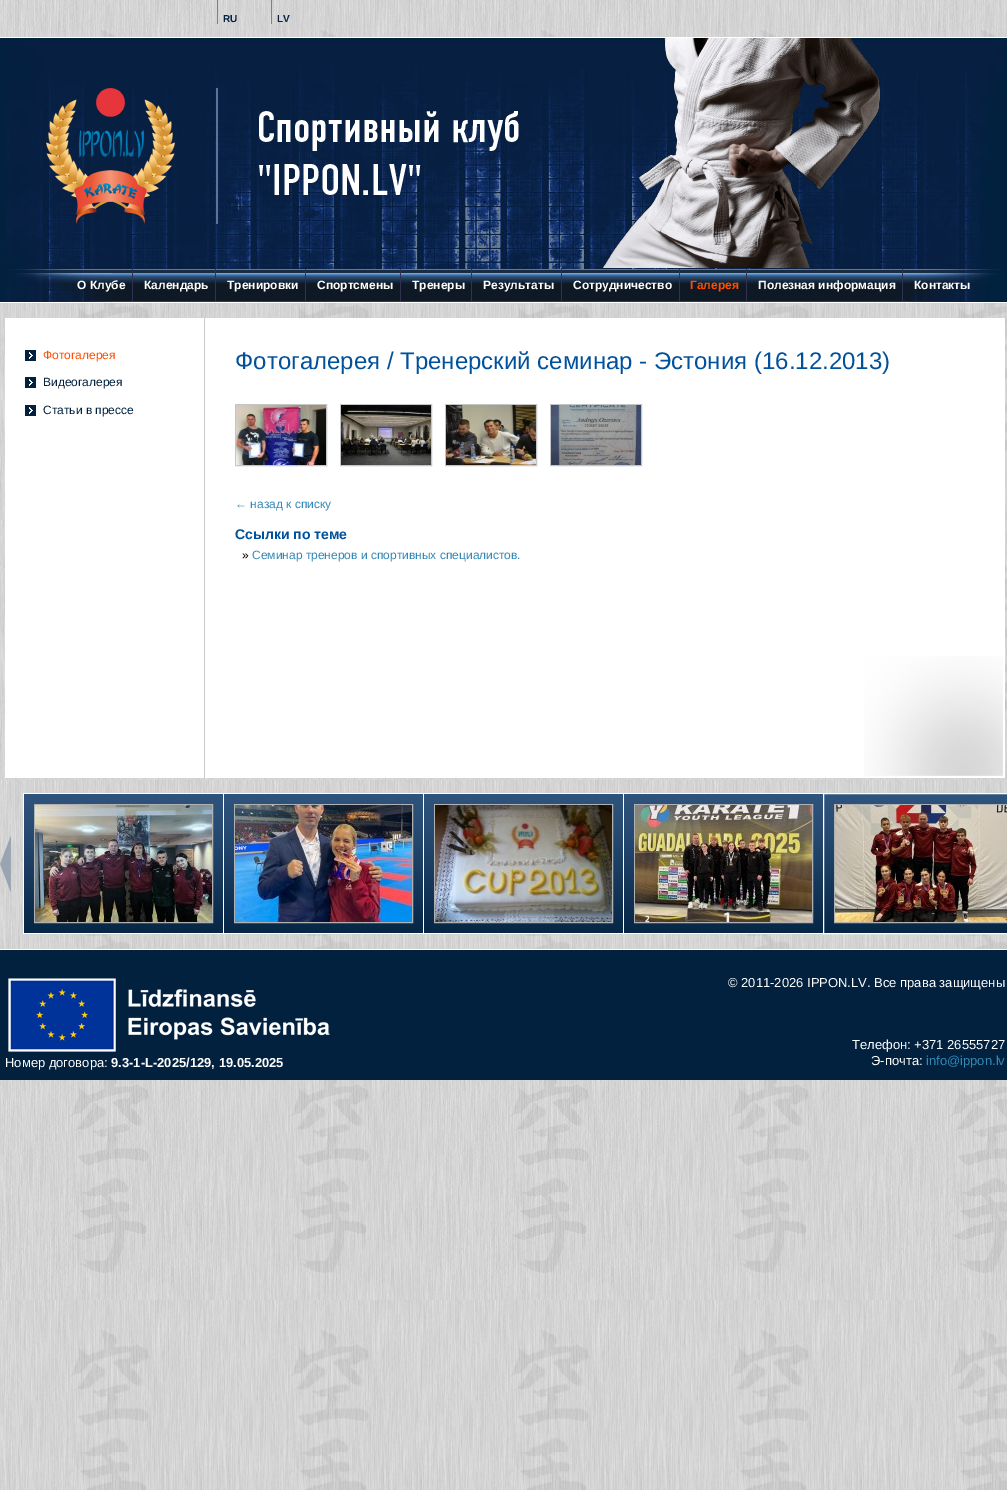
%!PS
<< /PageSize [1007 1490] >> setpagedevice
/rgb { 3 { 255 div 3 1 roll } repeat setrgbcolor } def
/font { [ exch dup neg 0 0 3 -1 roll 0 0 ] selectfont } def
/text { moveto show } def
/picture { 5 dict begin { /h /w /y /x /name } { exch def } forall
  gsave x y translate w h scale
  w h 8 [w 0 0 h 0 0] name (r) file false 3 colorimage grestore end } def
0 1490 translate 1 -1 scale
4 setmiterlimit
255 255 255 rgb
0 0 1007 1490 rectfill
(img_01.rgb) 0 0 1007 1490 picture
128 128 128 rgb
217 0 1 24 rectfill
271 0 1 24 rectfill
1 33 63 rgb
0 38 1007 264 rectfill
(img_02.rgb) 4 41 1000 261 picture
255 255 255 rgb
0 37 1007 1 rectfill
0 302 1007 1 rectfill
(img_03.rgb) 46 88 129 136 picture
(img_04.rgb) 216 88 303 136 picture
(img_05.rgb) 602 38 279 230 picture
(img_06.rgb) 9 269 995 33 picture
49 49 81 rgb
132 269 1 32 rectfill
215 269 1 32 rectfill
305 269 1 32 rectfill
400 269 1 32 rectfill
471 269 1 32 rectfill
561 269 1 32 rectfill
679 269 1 32 rectfill
746 269 1 32 rectfill
902 269 1 32 rectfill
255 255 255 rgb
5 318 1000 460 rectfill
203 203 203 rgb
204 318 1 460 rectfill
(img_07.rgb) 25 350 11 11 picture
(img_07.rgb) 25 377 11 11 picture
(img_07.rgb) 25 405 11 11 picture
(img_08.rgb) 864 656 139 120 picture
194 198 199 rgb
235.5 404.5 91 61 rectstroke
(img_09.rgb) 236 405 90 60 picture
340.5 404.5 91 61 rectstroke
(img_10.rgb) 341 405 90 60 picture
445.5 404.5 91 61 rectstroke
(img_11.rgb) 446 405 90 60 picture
550.5 404.5 91 61 rectstroke
(img_12.rgb) 551 405 90 60 picture
(img_13.rgb) 24 794 199 139 picture
255 255 255 rgb
23 793 800 1 rectfill
23 933 800 1 rectfill
23 793 1 141 rectfill
178 177 177 rgb
34.5 804.5 178 118 rectstroke
(img_14.rgb) 35 805 177 117 picture
(img_15.rgb) 0 835 11 57 picture
(img_13.rgb) 224 794 199 139 picture
255 255 255 rgb
223 793 1 141 rectfill
178 177 177 rgb
234.5 804.5 178 118 rectstroke
(img_16.rgb) 235 805 177 117 picture
(img_13.rgb) 424 794 199 139 picture
255 255 255 rgb
423 793 1 141 rectfill
178 177 177 rgb
434.5 804.5 178 118 rectstroke
(img_17.rgb) 435 805 177 117 picture
(img_13.rgb) 624 794 199 139 picture
255 255 255 rgb
623 793 1 141 rectfill
178 177 177 rgb
634.5 804.5 178 118 rectstroke
(img_18.rgb) 635 805 177 117 picture
(img_19.rgb) 824 794 183 139 picture
255 255 255 rgb
823.5 793.5 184 140 rectstroke
178 177 177 rgb
834.5 804.5 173 118 rectstroke
(img_20.rgb) 835 805 172 117 picture
1 33 63 rgb
0 950 1007 130 rectfill
255 255 255 rgb
0 949 1007 1 rectfill
(img_21.rgb) 8 978 322 74 picture
/LiberationSans-Bold 10 font
7 31 65 rgb
(RU) 223 22 text
(LV) 277 22 text
/LiberationSans-Bold 12 font
255 255 255 rgb
(О Клубе) 77 289 text
(Календарь) 144 289 text
(Тренировки) 227 289 text
(Спортсмены) 317 289 text
(Тренеры) 412 289 text
(Результаты) 483 289 text
(Сотрудничество) 573 289 text
255 78 0 rgb
(Галерея) 690 289 text
255 255 255 rgb
(Полезная информация) 758 289 text
(Контакты) 914 289 text
/LiberationSans-Regular 12 font
255 78 0 rgb
(Фотогалерея) 43 359 text
1 33 63 rgb
(Видеогалерея) 43 386 text
(Статьи в прессе) 43 414 text
/LiberationSans-Regular 24 font
0 81 156 rgb
(Фотогалерея / Тренерский семинар - Эстония \(16.12.2013\)) 235 369 text
/LiberationSans-Regular 12 font
51 137 182 rgb
(← назад к списку) 235 508 text
/LiberationSans-Bold 14 font
0 81 156 rgb
(Ссылки по теме) 235 539 text
/LiberationSans-Regular 12 font
0 0 0 rgb
(») 242 559 text
51 137 182 rgb
(Семинар тренеров и спортивных специалистов.) 252 559 text
/LiberationSans-Regular 13 font
255 255 255 rgb
(Номер договора:) 5 1067 text
/LiberationSans-Bold 13 font
(9.3-1-L-2025/129, 19.05.2025) 111 1067 text
/LiberationSans-Regular 13 font
(© 2011-2026 IPPON.LV. Все права защищены) 728 987 text
(Телефон: +371 26555727) 852 1049 text
(Э-почта:) 871 1065 text
51 137 182 rgb
(info@ippon.lv) 926 1065 text
showpage
